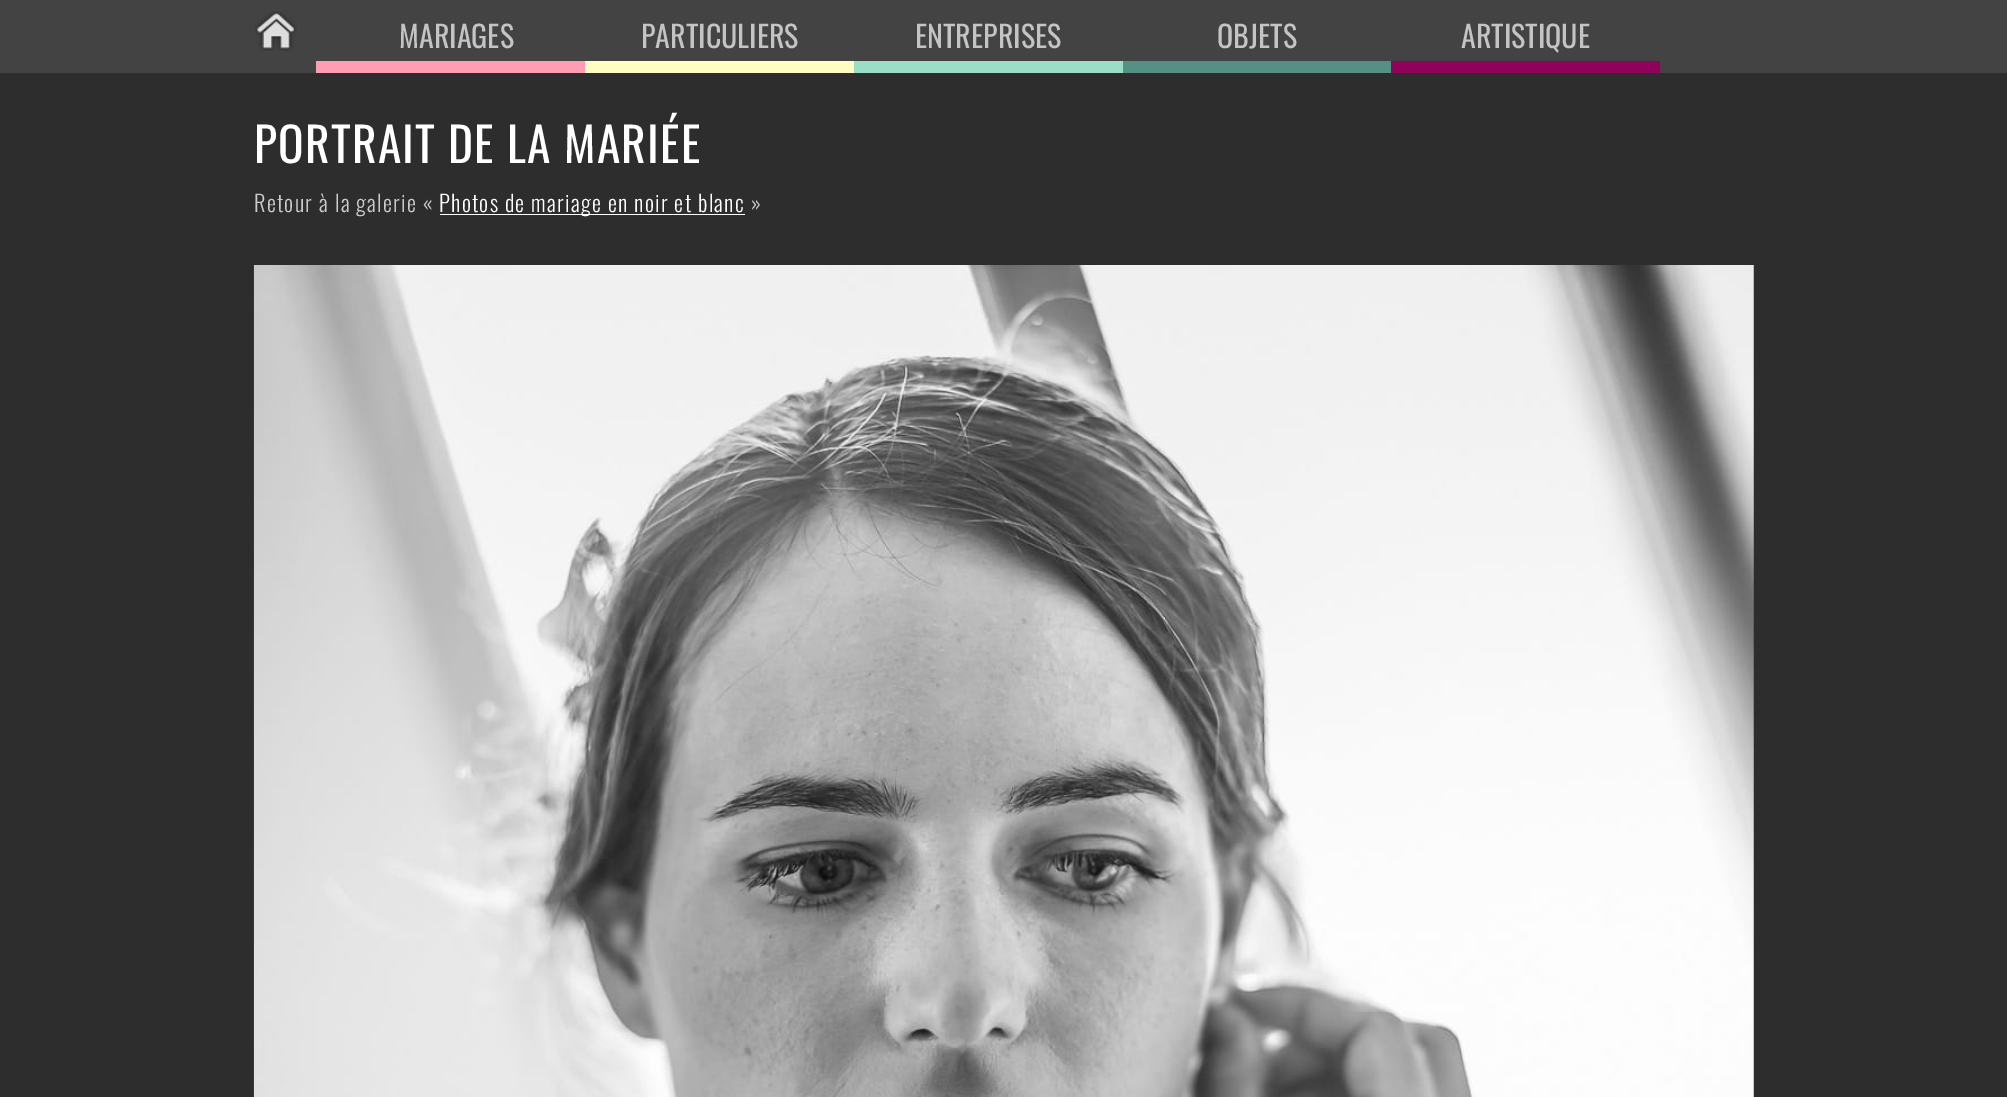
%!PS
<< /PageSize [2007 1097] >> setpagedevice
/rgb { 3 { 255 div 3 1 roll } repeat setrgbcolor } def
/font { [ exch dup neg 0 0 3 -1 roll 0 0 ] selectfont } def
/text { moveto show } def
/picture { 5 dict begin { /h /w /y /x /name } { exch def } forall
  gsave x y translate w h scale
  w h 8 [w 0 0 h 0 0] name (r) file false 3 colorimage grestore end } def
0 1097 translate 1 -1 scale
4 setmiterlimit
45 45 45 rgb
0 0 2007 1097 rectfill
67 67 67 rgb
0 0 2007 73 rectfill
(img_01.rgb) 255 11 42 40 picture
255 157 180 rgb
316 61 269 12 rectfill
255 253 194 rgb
585 61 269 12 rectfill
154 222 199 rgb
854 61 269 12 rectfill
86 144 132 rgb
1123 61 268 12 rectfill
144 1 91 rgb
1391 61 269 12 rectfill
255 255 255 rgb
440 214 305 1 rectfill
(img_02.rgb) 253 265 1501 832 picture
/Oswald-Regular 30 font
196 196 196 rgb
(MARIAGES) 399 48 text
(PARTICULIERS) 641 48 text
(ENTREPRISES) 915 48 text
(OBJETS) 1217 48 text
(ARTISTIQUE) 1461 48 text
/Oswald-Regular 47.5 font
255 255 255 rgb
254 163 moveto 1.25 0 (PORTRAIT DE LA MARIÉE) ashow
/Oswald-Light 22.5 font
204 204 204 rgb
254 212 moveto 1.25 0 (Retour à la galerie «) ashow
255 255 255 rgb
439 212 moveto 1.25 0 (Photos de mariage en noir et blanc) ashow
204 204 204 rgb
751 212 moveto 1.25 0 (») ashow
showpage
